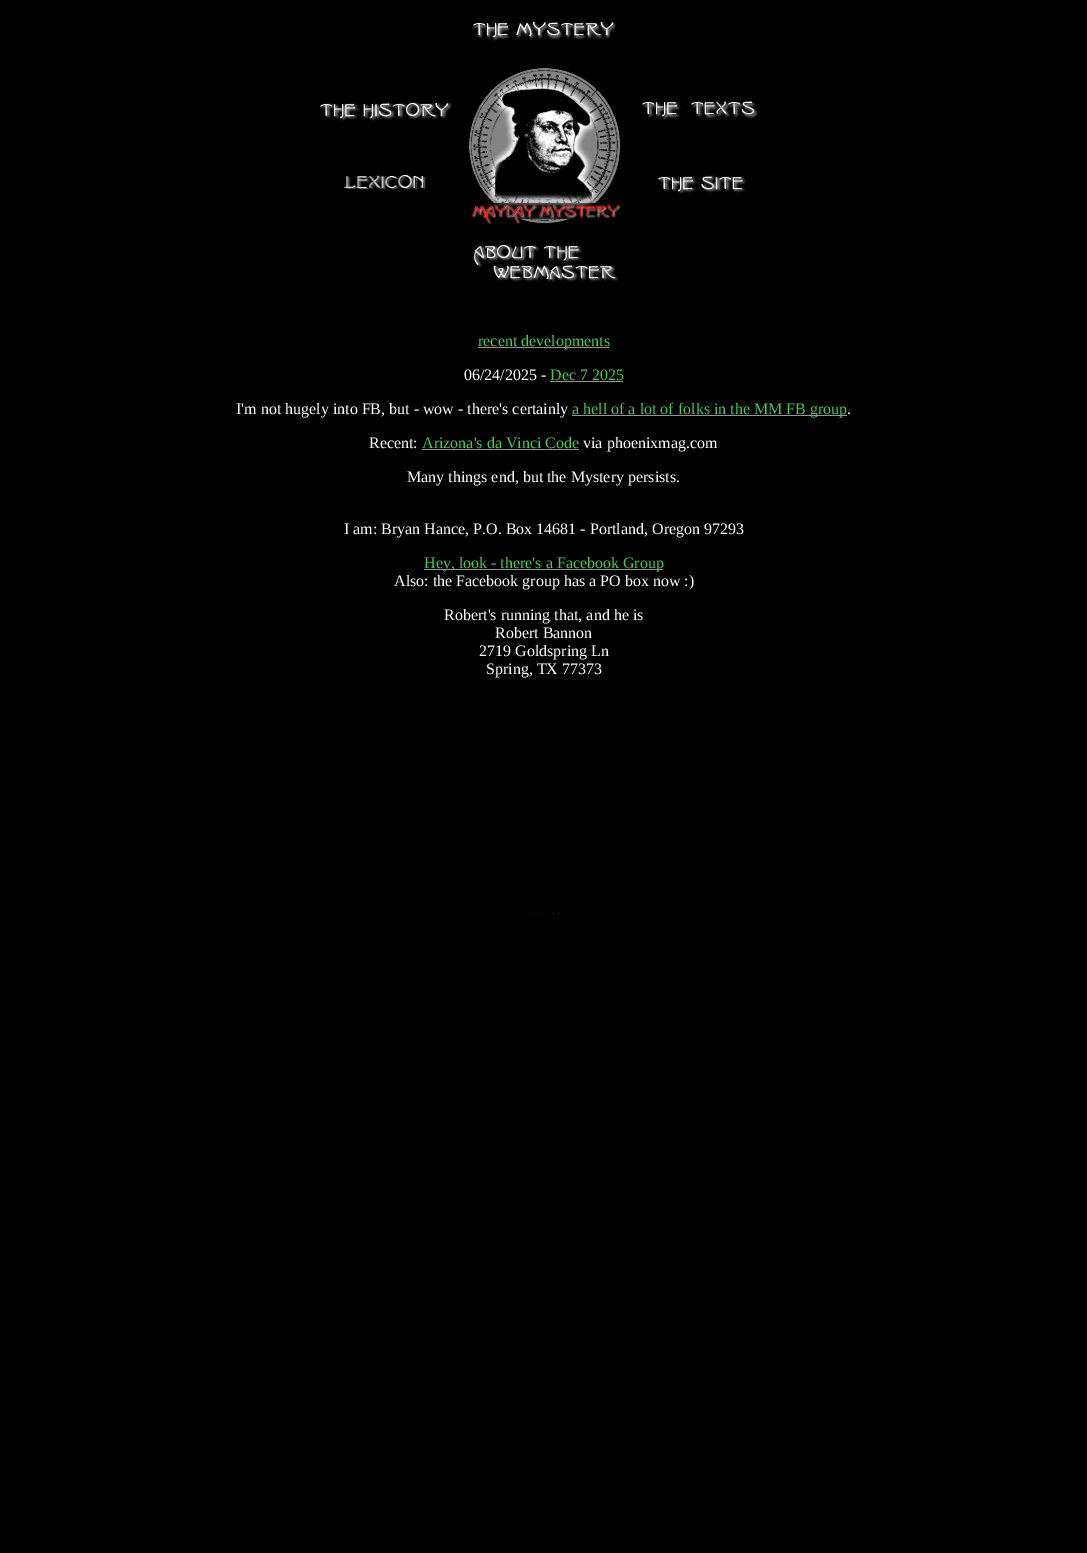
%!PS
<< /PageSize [1087 1553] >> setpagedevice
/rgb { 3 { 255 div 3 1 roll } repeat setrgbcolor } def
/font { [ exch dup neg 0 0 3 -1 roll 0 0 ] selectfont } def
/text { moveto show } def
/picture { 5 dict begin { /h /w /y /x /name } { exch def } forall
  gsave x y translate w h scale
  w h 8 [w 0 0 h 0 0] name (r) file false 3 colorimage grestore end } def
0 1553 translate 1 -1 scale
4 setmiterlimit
0 0 0 rgb
0 0 1087 1553 rectfill
(img_01.rgb) 473 22 144 19 picture
(img_02.rgb) 320 102 132 19 picture
(img_03.rgb) 344 175 82 15 picture
(img_04.rgb) 469 68 152 156 picture
(img_05.rgb) 642 101 116 19 picture
(img_06.rgb) 658 175 88 19 picture
(img_07.rgb) 474 244 145 38 picture
68 204 85 rgb
478 347 131 1 rectfill
550 381 73 1 rectfill
572 415 275 1 rectfill
422 449 157 1 rectfill
424 569 239 1 rectfill
35 14 14 rgb
528 913 1 1 rectfill
36 13 13 rgb
533 913 1 1 rectfill
24 8 8 rgb
538 913 1 1 rectfill
29 11 11 rgb
543 913 1 1 rectfill
25 9 9 rgb
548 913 1 1 rectfill
58 22 22 rgb
553 913 1 1 rectfill
49 20 20 rgb
558 913 1 1 rectfill
/LiberationSerif-Regular 16 font
68 204 85 rgb
(recent developments) 478 346 text
255 255 255 rgb
(06/24/2025 -) 464 380 text
68 204 85 rgb
(Dec 7 2025) 550 380 text
255 255 255 rgb
(I'm not hugely into FB, but - wow - there's certainly) 236 414 text
68 204 85 rgb
(a hell of a lot of folks in the MM FB group) 572 414 text
255 255 255 rgb
(.) 847 414 text
(Recent:) 369 448 text
68 204 85 rgb
(Arizona's da Vinci Code) 422 448 text
255 255 255 rgb
(via phoenixmag.com) 583 448 text
(Many things end, but the Mystery persists.) 407 482 text
(I am: Bryan Hance, P.O. Box 14681 - Portland, Oregon 97293) 344 534 text
68 204 85 rgb
(Hey, look - there's a Facebook Group) 424 568 text
255 255 255 rgb
(Also: the Facebook group has a PO box now :\)) 394 586 text
(Robert's running that, and he is) 444 620 text
(Robert Bannon) 495 638 text
(2719 Goldspring Ln) 479 656 text
(Spring, TX 77373) 486 674 text
showpage
